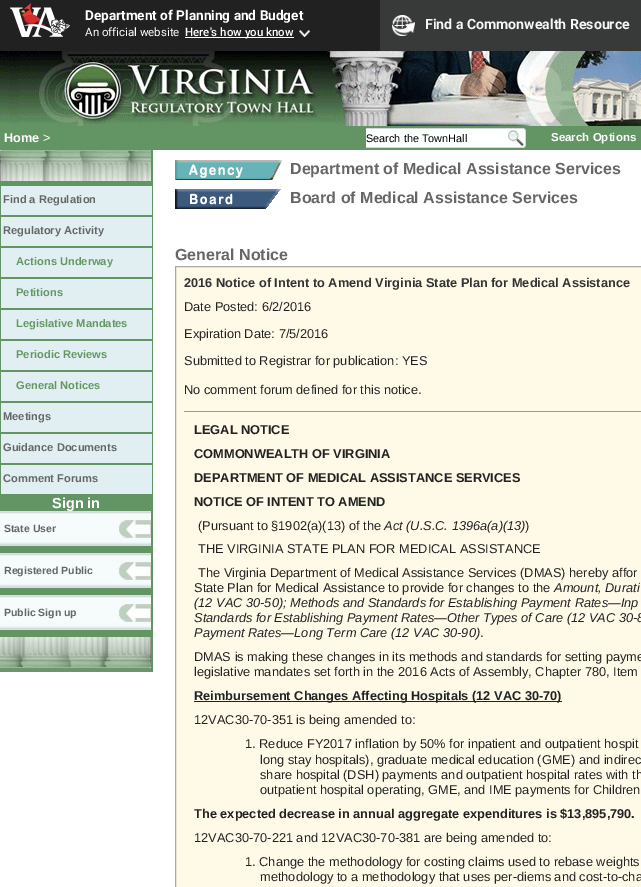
%!PS
<< /PageSize [641 887] >> setpagedevice
/rgb { 3 { 255 div 3 1 roll } repeat setrgbcolor } def
/font { [ exch dup neg 0 0 3 -1 roll 0 0 ] selectfont } def
/text { moveto show } def
/picture { 5 dict begin { /h /w /y /x /name } { exch def } forall
  gsave x y translate w h scale
  w h 8 [w 0 0 h 0 0] name (r) file false 3 colorimage grestore end } def
0 887 translate 1 -1 scale
4 setmiterlimit
255 255 255 rgb
0 0 641 887 rectfill
33 33 33 rgb
0 0 380 51 rectfill
(img_01.rgb) 10 3 60 34 picture
255 255 255 rgb
185 37 109 1 rectfill
(img_02.rgb) 299 30 11 7 picture
56 57 57 rgb
380 0 261 51 rectfill
(img_03.rgb) 392 15 23 21 picture
(img_04.rgb) 0 51 641 75 picture
99 149 100 rgb
0 126 641 24 rectfill
254 255 255 rgb
366 129 140 18 rectfill
213 213 213 rgb
366 128 140 1 rectfill
366 147 140 1 rectfill
(img_05.rgb) 506 128 20 20 picture
99 149 100 rgb
0 150 153 522 rectfill
(img_06.rgb) 0 150 151 31 picture
225 239 242 rgb
1 186 151 29 rectfill
1 217 151 29 rectfill
1 248 151 29 rectfill
1 279 151 29 rectfill
1 310 151 29 rectfill
1 341 151 29 rectfill
1 372 151 29 rectfill
1 403 151 29 rectfill
1 434 151 29 rectfill
1 465 151 29 rectfill
(img_07.rgb) 0 511 151 35 picture
(img_07.rgb) 0 553 151 35 picture
(img_07.rgb) 0 595 151 35 picture
(img_08.rgb) 0 637 151 35 picture
(img_09.rgb) 175 160 107 20 picture
(img_10.rgb) 175 189 106 20 picture
255 250 232 rgb
175.5 266.5 moveto 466 0 rlineto 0 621 rlineto -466 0 rlineto closepath gsave fill grestore
170 170 170 rgb
stroke
153 153 153 rgb
184 411 457 1 rectfill
34 34 34 rgb
194 701 368 1 rectfill
/Roboto-Bold 13.6 font
255 255 255 rgb
(Department of Planning and Budget) 85 20 text
/Roboto-Regular 11.5 font
(An official website) 85 36 text
/Roboto-Medium 11.5 font
(Here's how you know) 185 36 text
/Roboto-Bold 14.1 font
246 246 246 rgb
(Find a Commonwealth Resource) 425 29 text
/LiberationSans-Bold 12.8 font
255 255 255 rgb
(Home) 4 142 text
/LiberationSans-Regular 12.8 font
(>) 43 142 text
/LiberationSans-Regular 10.9 font
0 0 0 rgb
(Search the TownHall) 366 142 text
/LiberationSans-Bold 11.5 font
255 255 255 rgb
(Search Options) 551 141 text
/LiberationSans-Bold 11.1 font
101 103 102 rgb
(Find a Regulation) 3 203 text
(Regulatory Activity) 3 234 text
101 151 100 rgb
(Actions Underway) 16 265 text
(Petitions) 16 296 text
(Legislative Mandates) 16 327 text
(Periodic Reviews) 16 358 text
(General Notices) 16 389 text
101 103 102 rgb
(Meetings) 3 420 text
(Guidance Documents) 3 451 text
(Comment Forums) 3 482 text
/LiberationSans-Bold 14.5 font
255 255 255 rgb
(Sign in) 52 508 text
/LiberationSans-Bold 10.5 font
101 103 102 rgb
(State User) 4 532 text
(Registered Public) 4 574 text
(Public Sign up) 4 616 text
/LiberationSans-Bold 16 font
(Department of Medical Assistance Services) 290 174 text
(Board of Medical Assistance Services) 290 203 text
(General Notice) 175 260 text
/LiberationSans-Bold 12.8 font
51 51 51 rgb
(2016 Notice of Intent to Amend Virginia State Plan for Medical Assistance) 184 287 text
/LiberationSans-Regular 12.8 font
34 34 34 rgb
(Date Posted: 6/2/2016) 184 311 text
(Expiration Date: 7/5/2016) 184 338 text
(Submitted to Registrar for publication: YES) 184 365 text
(No comment forum defined for this notice.) 184 394 text
/LiberationSans-Bold 12.8 font
(LEGAL NOTICE) 194 434 text
(COMMONWEALTH OF VIRGINIA) 194 458 text
(DEPARTMENT OF MEDICAL ASSISTANCE SERVICES) 194 482 text
(NOTICE OF INTENT TO AMEND) 194 506 text
/LiberationSans-Regular 12.8 font
(\(Pursuant to §1902\(a\)\(13\) of the) 198 530 text
/LiberationSans-Italic 12.8 font
(Act \(U.S.C. 1396a\(a\)\(13\)) 384 530 text
/LiberationSans-Regular 12.8 font
(\)) 525 530 text
(THE VIRGINIA STATE PLAN FOR MEDICAL ASSISTANCE) 198 553 text
(The Virginia Department of Medical Assistance Services \(DMAS\) hereby affor) 198 577 text
(State Plan for Medical Assistance to provide for changes to the) 194 592 text
/LiberationSans-Italic 12.8 font
(Amount, Durati) 554 592 text
(\(12 VAC 30-50\); Methods and Standards for Establishing Payment Rates—Inp) 194 607 text
(Standards for Establishing Payment Rates—Other Types of Care \(12 VAC 30-8) 194 622 text
(Payment Rates—Long Term Care \(12 VAC 30-90\)) 194 637 text
/LiberationSans-Regular 12.8 font
(.) 480 637 text
(DMAS is making these changes in its methods and standards for setting payme) 194 661 text
(legislative mandates set forth in the 2016 Acts of Assembly, Chapter 780, Item) 194 676 text
/LiberationSans-Bold 12.8 font
(Reimbursement Changes Affecting Hospitals \(12 VAC 30-70\)) 194 700 text
/LiberationSans-Regular 12.8 font
(12VAC30-70-351 is being amended to:) 194 724 text
(1. Reduce FY2017 inflation by 50% for inpatient and outpatient hospit) 245 748 text
(long stay hospitals\), graduate medical education \(GME\) and indirec) 260 764 text
(share hospital \(DSH\) payments and outpatient hospital rates with th) 260 779 text
(outpatient hospital operating, GME, and IME payments for Children) 260 794 text
/LiberationSans-Bold 12.8 font
(The expected decrease in annual aggregate expenditures is $13,895,790.) 194 818 text
/LiberationSans-Regular 12.8 font
(12VAC30-70-221 and 12VAC30-70-381 are being amended to:) 194 842 text
(1. Change the methodology for costing claims used to rebase weights) 245 866 text
(methodology to a methodology that uses per-diems and cost-to-cha) 260 881 text
showpage
